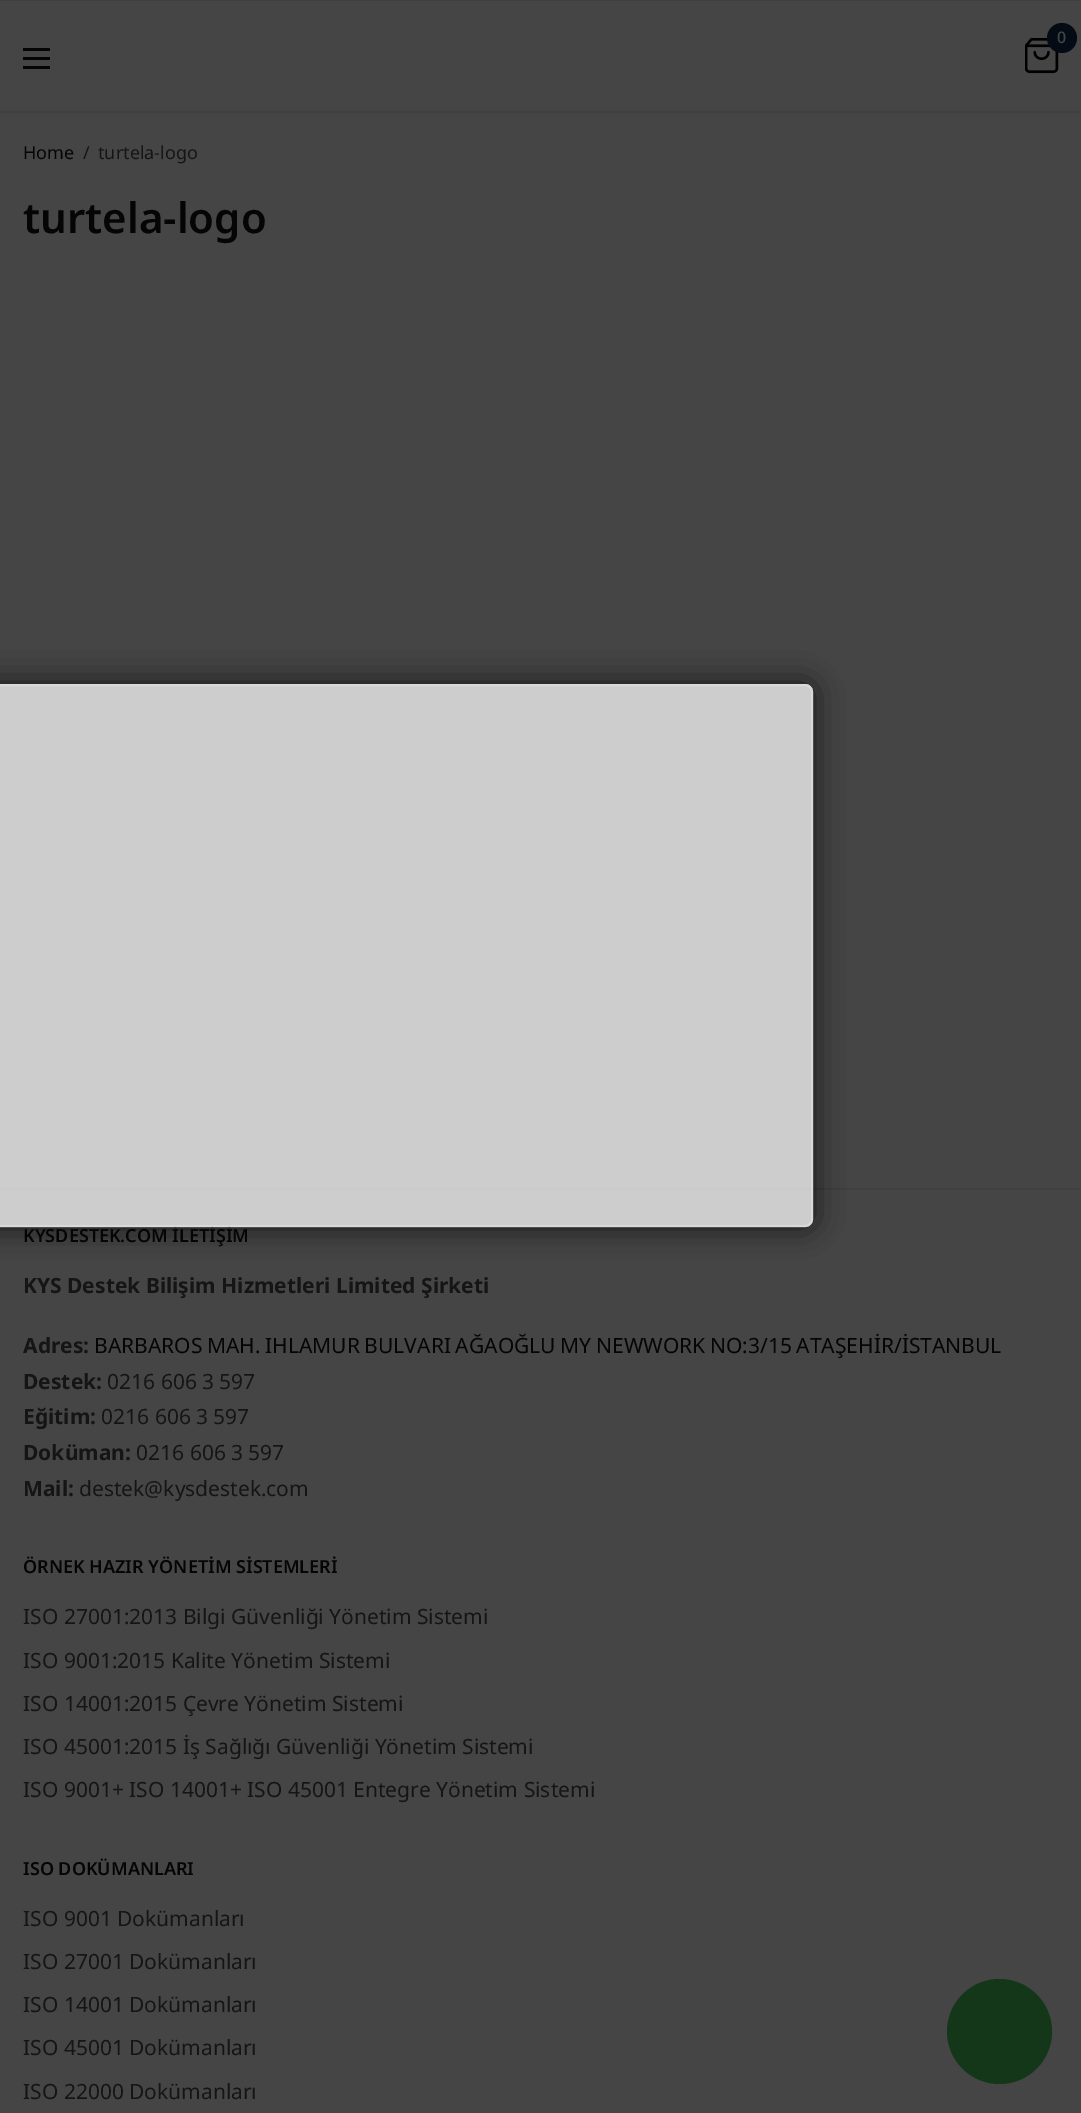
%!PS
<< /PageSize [1081 2113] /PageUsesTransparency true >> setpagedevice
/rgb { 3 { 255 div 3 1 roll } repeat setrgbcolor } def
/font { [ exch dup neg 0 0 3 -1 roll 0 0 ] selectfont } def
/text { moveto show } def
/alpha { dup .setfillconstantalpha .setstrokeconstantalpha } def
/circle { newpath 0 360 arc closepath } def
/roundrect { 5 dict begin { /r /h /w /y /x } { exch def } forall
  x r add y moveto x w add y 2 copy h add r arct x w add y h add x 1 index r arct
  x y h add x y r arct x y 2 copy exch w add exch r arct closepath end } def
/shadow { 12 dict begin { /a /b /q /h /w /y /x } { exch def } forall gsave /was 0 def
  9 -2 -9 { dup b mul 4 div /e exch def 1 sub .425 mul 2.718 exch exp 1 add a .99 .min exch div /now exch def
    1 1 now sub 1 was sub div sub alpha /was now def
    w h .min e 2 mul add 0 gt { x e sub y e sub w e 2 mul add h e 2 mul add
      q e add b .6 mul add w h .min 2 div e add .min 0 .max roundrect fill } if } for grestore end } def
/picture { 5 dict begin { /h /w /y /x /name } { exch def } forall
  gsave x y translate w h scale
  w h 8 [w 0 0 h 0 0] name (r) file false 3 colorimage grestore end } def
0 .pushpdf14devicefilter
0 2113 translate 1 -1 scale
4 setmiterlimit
69 69 69 rgb
0 0 1081 2113 rectfill
63 63 63 rgb
0 0 1081 1 rectfill
64 64 64 rgb
0 111 1081 2 rectfill
(img_01.rgb) 1025 38 34 36 picture
5 11 21 rgb
1062 38 15 circle fill
5 5 5 rgb
23 48 27 3 rectfill
23 57 27 3 rectfill
23 66 27 3 rectfill
64 64 64 rgb
0 1188 1081 2 rectfill
gsave
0 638 moveto 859 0 rlineto 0 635 rlineto -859 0 rlineto closepath -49 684 moveto 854 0 rlineto 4.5 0 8 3.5 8 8 rcurveto 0 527 rlineto 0 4.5 -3.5 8 -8 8 rcurveto -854 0 rlineto -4.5 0 -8 -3.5 -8 -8 rcurveto 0 -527 rlineto 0 -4.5 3.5 -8 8 -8 rcurveto closepath eoclip newpath
0 0 0 rgb
-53 684 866 543 8 15 0.73 shadow
grestore
21 55 25 rgb
999.5 2031.5 52.5 circle fill
/NotoSans-Medium 16 font
69 69 69 rgb
(0) 1057 43 text
/NotoSans-Regular 18 font
5 5 5 rgb
(Home) 23 159 text
21 21 21 rgb
(/) 83 159 text
(turtela-logo) 98 159 text
/NotoSans-SemiBold 42 font
5 5 5 rgb
(turtela-logo) 23 233 text
/NotoSans-SemiBold 18 font
(KYSDESTEK.COM İLETİŞİM) 23 1242 text
/NotoSans-Bold 21 font
21 21 21 rgb
(KYS Destek Bilişim Hizmetleri Limited Şirketi) 23 1293 text
(Adres:) 23 1353 text
/NotoSans-Regular 21 font
5 5 5 rgb
94 1353 moveto -0.75 0 32 (BARBAROS MAH. IHLAMUR BULVARI AĞAOĞLU MY NEWWORK NO:3/15 ATAŞEHİR/İSTANBUL) widthshow
/NotoSans-Bold 21 font
21 21 21 rgb
(Destek:) 23 1389 text
/NotoSans-Regular 21 font
(0216 606 3 597) 107 1389 text
/NotoSans-Bold 21 font
(Eğitim:) 23 1424 text
/NotoSans-Regular 21 font
(0216 606 3 597) 101 1424 text
/NotoSans-Bold 21 font
(Doküman:) 23 1460 text
/NotoSans-Regular 21 font
(0216 606 3 597) 136 1460 text
/NotoSans-Bold 21 font
(Mail:) 23 1496 text
/NotoSans-Regular 21 font
(destek@kysdestek.com) 79 1496 text
/NotoSans-SemiBold 18 font
5 5 5 rgb
(ÖRNEK HAZIR YÖNETİM SİSTEMLERİ) 23 1573 text
/NotoSans-Regular 21 font
21 21 21 rgb
(ISO 27001:2013 Bilgi Güvenliği Yönetim Sistemi) 23 1624 text
(ISO 9001:2015 Kalite Yönetim Sistemi) 23 1668 text
(ISO 14001:2015 Çevre Yönetim Sistemi) 23 1711 text
(ISO 45001:2015 İş Sağlığı Güvenliği Yönetim Sistemi) 23 1754 text
(ISO 9001+ ISO 14001+ ISO 45001 Entegre Yönetim Sistemi) 23 1797 text
/NotoSans-SemiBold 18 font
5 5 5 rgb
(ISO DOKÜMANLARI) 23 1875 text
/NotoSans-Regular 21 font
21 21 21 rgb
(ISO 9001 Dokümanları) 23 1926 text
(ISO 27001 Dokümanları) 23 1969 text
(ISO 14001 Dokümanları) 23 2012 text
(ISO 45001 Dokümanları) 23 2055 text
(ISO 22000 Dokümanları) 23 2099 text
0.73 alpha
255 255 255 rgb
-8 684 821 543 8 roundrect fill
221 221 221 rgb
2 setlinewidth
-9 685 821 541 7 roundrect stroke
.poppdf14devicefilter showpage
